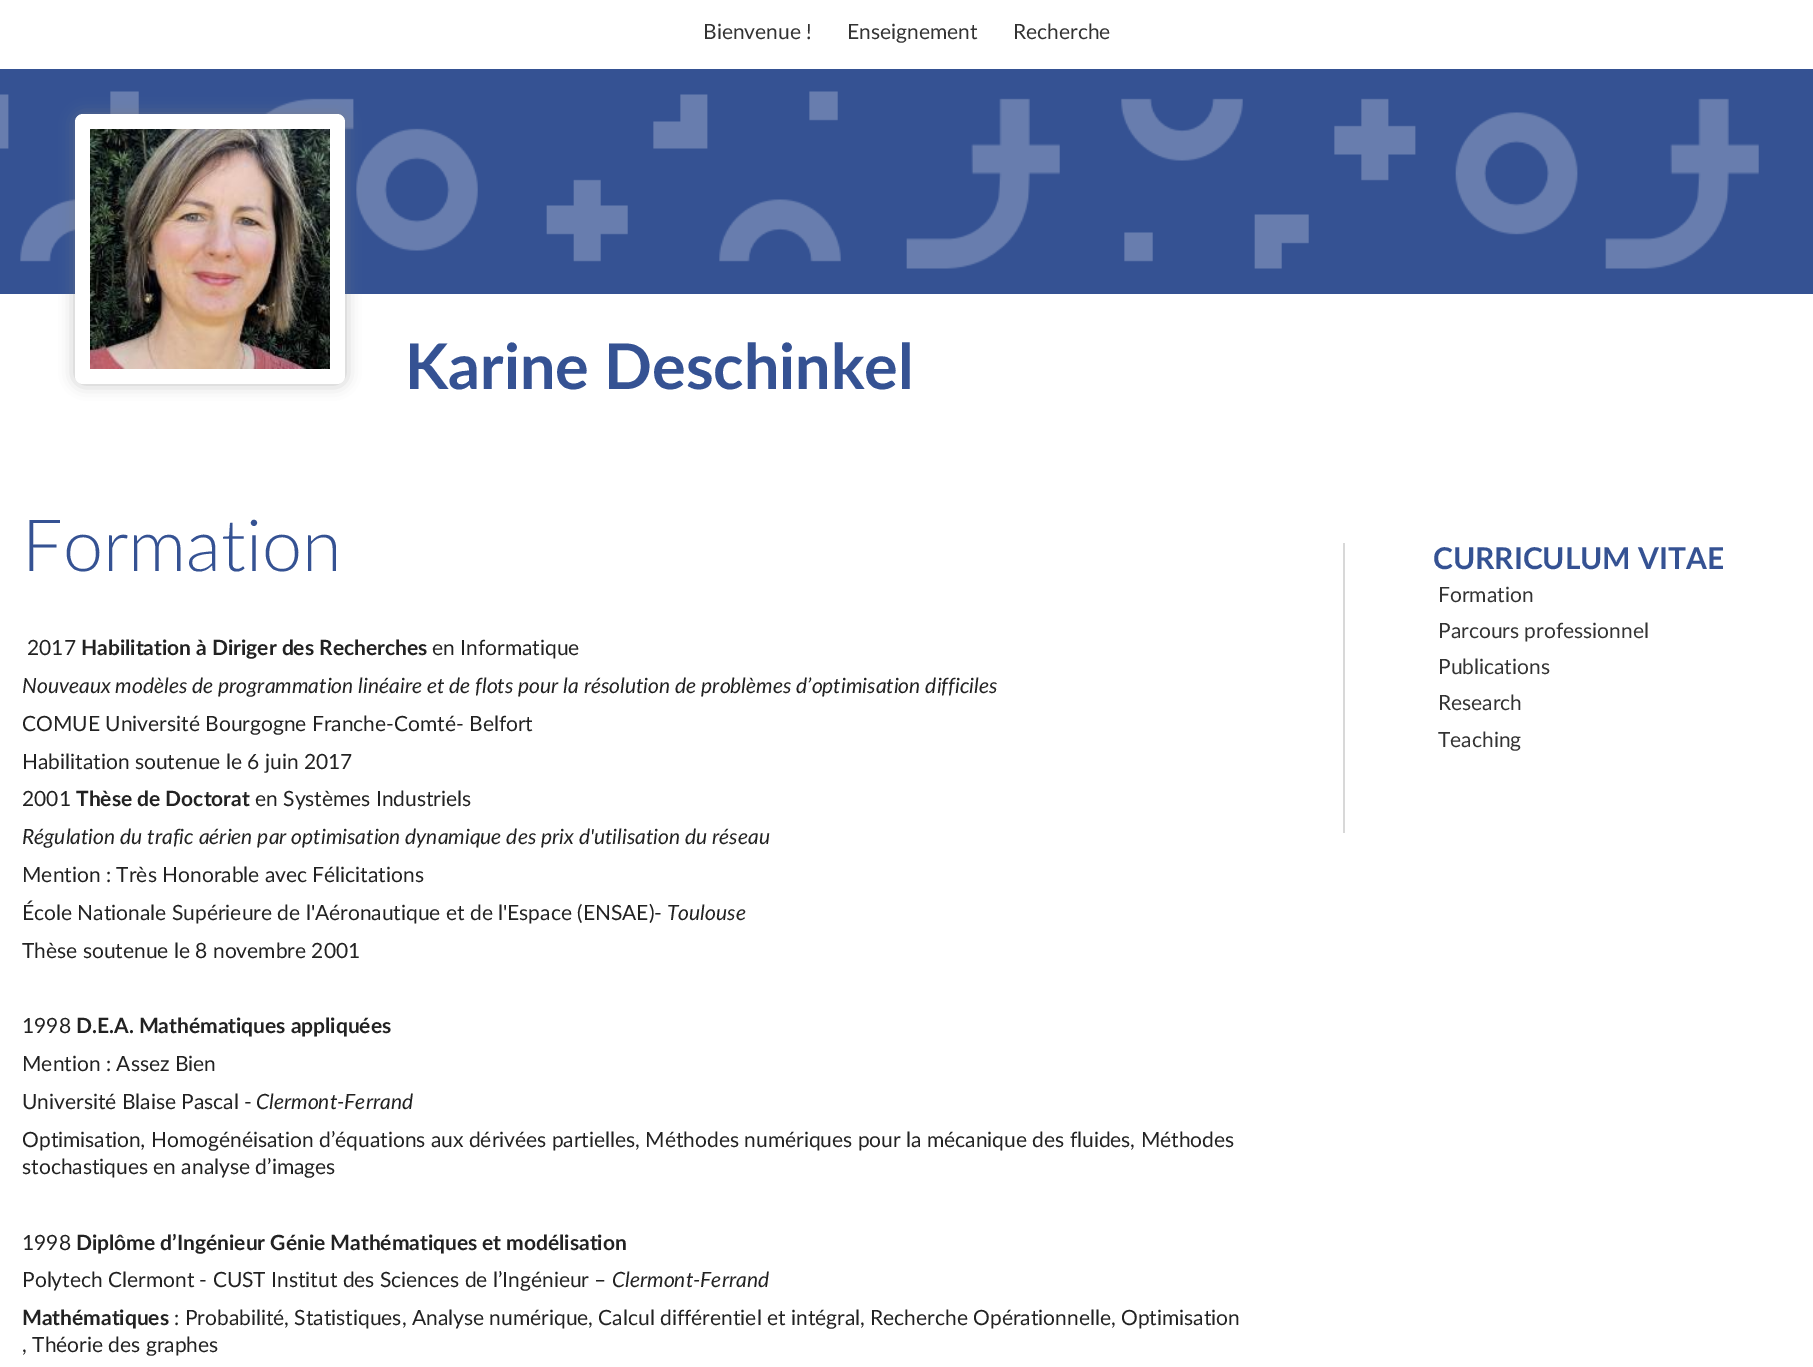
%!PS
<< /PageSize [1813 1367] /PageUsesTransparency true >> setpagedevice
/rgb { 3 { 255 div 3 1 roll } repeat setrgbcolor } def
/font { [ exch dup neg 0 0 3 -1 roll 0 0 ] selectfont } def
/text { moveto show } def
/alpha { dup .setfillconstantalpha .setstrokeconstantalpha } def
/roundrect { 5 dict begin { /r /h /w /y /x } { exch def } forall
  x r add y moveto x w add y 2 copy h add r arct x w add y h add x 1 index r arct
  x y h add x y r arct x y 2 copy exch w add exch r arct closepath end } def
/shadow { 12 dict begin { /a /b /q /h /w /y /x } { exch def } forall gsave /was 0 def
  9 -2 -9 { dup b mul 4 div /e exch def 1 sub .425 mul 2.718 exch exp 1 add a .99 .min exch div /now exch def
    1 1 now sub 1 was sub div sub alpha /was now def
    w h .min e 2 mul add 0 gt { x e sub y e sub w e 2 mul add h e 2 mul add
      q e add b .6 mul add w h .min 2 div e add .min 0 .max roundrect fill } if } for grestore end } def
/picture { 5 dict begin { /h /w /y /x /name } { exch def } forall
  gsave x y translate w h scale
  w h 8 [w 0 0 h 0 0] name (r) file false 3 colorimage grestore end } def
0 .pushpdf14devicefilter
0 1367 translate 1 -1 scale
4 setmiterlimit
255 255 255 rgb
0 0 1813 1367 rectfill
53 82 147 rgb
0 69 1813 225 rectfill
(img_02.rgb) 0 91 1759 178 picture
125 125 125 rgb
75 114 270 270 8 7.5 0.5 shadow
255 255 255 rgb
75 114 270 270 8 roundrect fill
(img_01.rgb) 90 129 240 240 picture
216 216 216 rgb
1343 543 2 290 rectfill
/Lato-Regular 21 font
51 51 51 rgb
(Bienvenue !) 703 39 text
(Enseignement) 847 39 text
(Recherche) 1013 39 text
/Lato-Bold 63 font
53 82 147 rgb
(Karine Deschinkel) 405 389 text
/Lato-Light 72 font
(Formation) 22 571 text
/Lato-Regular 21 font
34 34 34 rgb
(2017) 27 655 text
/Lato-Bold 21 font
(Habilitation à Diriger des Recherches) 81 655 text
/Lato-Regular 21 font
(en Informatique) 432 655 text
/Lato-Italic 21 font
(Nouveaux modèles de programmation linéaire et de flots pour la résolution de problèmes d’optimisation difficiles) 22 693 text
/Lato-Regular 21 font
(COMUE Université Bourgogne Franche-Comté- Belfort) 22 731 text
(Habilitation soutenue le 6 juin 2017) 22 769 text
(2001) 22 806 text
/Lato-Bold 21 font
(Thèse de Doctorat) 76 806 text
/Lato-Regular 21 font
(en Systèmes Industriels) 255 806 text
/Lato-Italic 21 font
(Régulation du trafic aérien par optimisation dynamique des prix d'utilisation du réseau) 22 844 text
/Lato-Regular 21 font
(Mention : Très Honorable avec Félicitations) 22 882 text
(École Nationale Supérieure de l'Aéronautique et de l'Espace \(ENSAE\)-) 22 920 text
/Lato-Italic 21 font
(Toulouse) 667 920 text
/Lato-Regular 21 font
(Thèse soutenue le 8 novembre 2001) 22 958 text
(1998) 22 1033 text
/Lato-Bold 21 font
(D.E.A. Mathématiques appliquées) 76 1033 text
/Lato-Regular 21 font
(Mention : Assez Bien) 22 1071 text
(Université Blaise Pascal -) 22 1109 text
/Lato-Italic 21 font
(Clermont-Ferrand) 256 1109 text
/Lato-Regular 21 font
(Optimisation) 22 1147 text
/Lato-Italic 21 font
(,) 141 1147 text
/Lato-Regular 21 font
(Homogénéisation d’équations aux dérivées partielles, Méthodes numériques pour la mécanique des fluides, Méthodes) 151 1147 text
(stochastiques en analyse d’images) 22 1174 text
(1998) 22 1250 text
/Lato-Bold 21 font
(Diplôme d’Ingénieur Génie Mathématiques et modélisation) 76 1250 text
/Lato-Regular 21 font
(Polytech Clermont - CUST Institut des Sciences de l’Ingénieur –) 22 1287 text
/Lato-Italic 21 font
(Clermont-Ferrand) 612 1287 text
/Lato-Bold 21 font
(Mathématiques) 22 1325 text
/Lato-Regular 21 font
(: Probabilité, Statistiques, Analyse numérique, Calcul différentiel et intégral, Recherche Opérationnelle, Optimisation) 174 1325 text
(, Théorie des graphes) 22 1352 text
/Lato-Bold 30 font
53 82 147 rgb
(CURRICULUM VITAE) 1433 569 text
/Lato-Regular 21 font
51 51 51 rgb
(Formation) 1438 602 text
(Parcours professionnel) 1438 638 text
(Publications) 1438 674 text
(Research) 1438 710 text
(Teaching) 1438 747 text
.poppdf14devicefilter showpage
